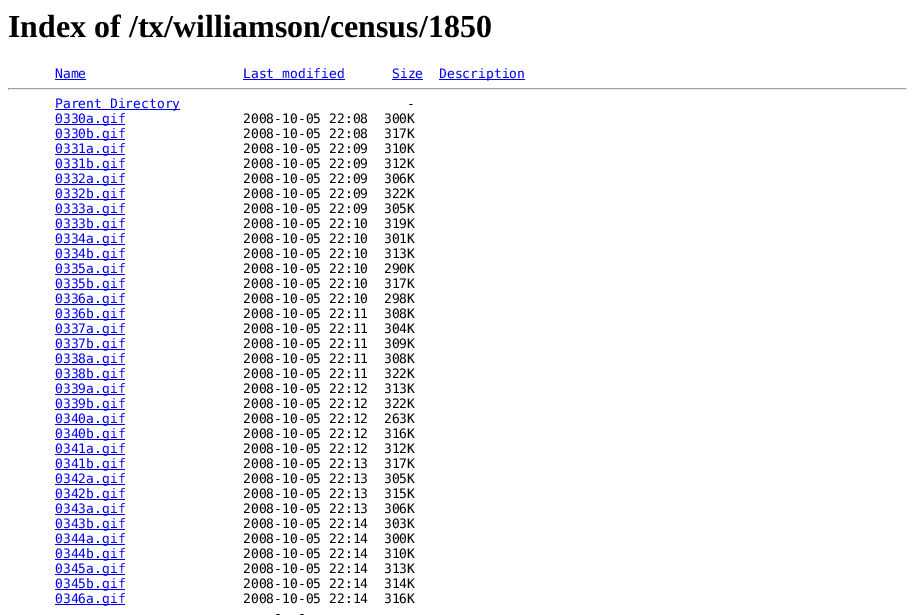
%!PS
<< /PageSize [915 615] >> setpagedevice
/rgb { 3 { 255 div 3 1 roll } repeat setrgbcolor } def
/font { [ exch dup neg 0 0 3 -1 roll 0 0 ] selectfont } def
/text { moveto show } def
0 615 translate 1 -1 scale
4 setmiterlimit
255 255 255 rgb
0 0 915 615 rectfill
0 0 238 rgb
55 79 31 1 rectfill
243 79 102 1 rectfill
392 79 31 1 rectfill
439 79 86 1 rectfill
159 159 159 rgb
8 88 899 1 rectfill
238 238 238 rgb
906 88 1 2 rectfill
8 89 899 1 rectfill
159 159 159 rgb
8 88 1 2 rectfill
0 0 238 rgb
55 109 125 1 rectfill
55 124 70 1 rectfill
55 139 70 1 rectfill
55 154 70 1 rectfill
55 169 70 1 rectfill
55 184 70 1 rectfill
55 199 70 1 rectfill
55 214 70 1 rectfill
55 229 70 1 rectfill
55 244 70 1 rectfill
55 259 70 1 rectfill
55 274 70 1 rectfill
55 289 70 1 rectfill
55 304 70 1 rectfill
55 319 70 1 rectfill
55 334 70 1 rectfill
55 349 70 1 rectfill
55 364 70 1 rectfill
55 379 70 1 rectfill
55 394 70 1 rectfill
55 409 70 1 rectfill
55 424 70 1 rectfill
55 439 70 1 rectfill
55 454 70 1 rectfill
55 469 70 1 rectfill
55 484 70 1 rectfill
55 499 70 1 rectfill
55 514 70 1 rectfill
55 529 70 1 rectfill
55 544 70 1 rectfill
55 559 70 1 rectfill
55 574 70 1 rectfill
55 589 70 1 rectfill
55 604 70 1 rectfill
/LiberationSerif-Bold 32 font
0 0 0 rgb
(Index of /tx/williamson/census/1850) 8 37 text
/DejaVuSansMono-Regular 13 font
0 0 238 rgb
(Name) 55 78 text
(Last modified) 243 78 text
(Size) 392 78 text
(Description) 439 78 text
(Parent Directory) 55 108 text
0 0 0 rgb
(-) 407 108 text
0 0 238 rgb
(0330a.gif) 55 123 text
0 0 0 rgb
(2008-10-05 22:08  300K) 243 123 text
0 0 238 rgb
(0330b.gif) 55 138 text
0 0 0 rgb
(2008-10-05 22:08  317K) 243 138 text
0 0 238 rgb
(0331a.gif) 55 153 text
0 0 0 rgb
(2008-10-05 22:09  310K) 243 153 text
0 0 238 rgb
(0331b.gif) 55 168 text
0 0 0 rgb
(2008-10-05 22:09  312K) 243 168 text
0 0 238 rgb
(0332a.gif) 55 183 text
0 0 0 rgb
(2008-10-05 22:09  306K) 243 183 text
0 0 238 rgb
(0332b.gif) 55 198 text
0 0 0 rgb
(2008-10-05 22:09  322K) 243 198 text
0 0 238 rgb
(0333a.gif) 55 213 text
0 0 0 rgb
(2008-10-05 22:09  305K) 243 213 text
0 0 238 rgb
(0333b.gif) 55 228 text
0 0 0 rgb
(2008-10-05 22:10  319K) 243 228 text
0 0 238 rgb
(0334a.gif) 55 243 text
0 0 0 rgb
(2008-10-05 22:10  301K) 243 243 text
0 0 238 rgb
(0334b.gif) 55 258 text
0 0 0 rgb
(2008-10-05 22:10  313K) 243 258 text
0 0 238 rgb
(0335a.gif) 55 273 text
0 0 0 rgb
(2008-10-05 22:10  290K) 243 273 text
0 0 238 rgb
(0335b.gif) 55 288 text
0 0 0 rgb
(2008-10-05 22:10  317K) 243 288 text
0 0 238 rgb
(0336a.gif) 55 303 text
0 0 0 rgb
(2008-10-05 22:10  298K) 243 303 text
0 0 238 rgb
(0336b.gif) 55 318 text
0 0 0 rgb
(2008-10-05 22:11  308K) 243 318 text
0 0 238 rgb
(0337a.gif) 55 333 text
0 0 0 rgb
(2008-10-05 22:11  304K) 243 333 text
0 0 238 rgb
(0337b.gif) 55 348 text
0 0 0 rgb
(2008-10-05 22:11  309K) 243 348 text
0 0 238 rgb
(0338a.gif) 55 363 text
0 0 0 rgb
(2008-10-05 22:11  308K) 243 363 text
0 0 238 rgb
(0338b.gif) 55 378 text
0 0 0 rgb
(2008-10-05 22:11  322K) 243 378 text
0 0 238 rgb
(0339a.gif) 55 393 text
0 0 0 rgb
(2008-10-05 22:12  313K) 243 393 text
0 0 238 rgb
(0339b.gif) 55 408 text
0 0 0 rgb
(2008-10-05 22:12  322K) 243 408 text
0 0 238 rgb
(0340a.gif) 55 423 text
0 0 0 rgb
(2008-10-05 22:12  263K) 243 423 text
0 0 238 rgb
(0340b.gif) 55 438 text
0 0 0 rgb
(2008-10-05 22:12  316K) 243 438 text
0 0 238 rgb
(0341a.gif) 55 453 text
0 0 0 rgb
(2008-10-05 22:12  312K) 243 453 text
0 0 238 rgb
(0341b.gif) 55 468 text
0 0 0 rgb
(2008-10-05 22:13  317K) 243 468 text
0 0 238 rgb
(0342a.gif) 55 483 text
0 0 0 rgb
(2008-10-05 22:13  305K) 243 483 text
0 0 238 rgb
(0342b.gif) 55 498 text
0 0 0 rgb
(2008-10-05 22:13  315K) 243 498 text
0 0 238 rgb
(0343a.gif) 55 513 text
0 0 0 rgb
(2008-10-05 22:13  306K) 243 513 text
0 0 238 rgb
(0343b.gif) 55 528 text
0 0 0 rgb
(2008-10-05 22:14  303K) 243 528 text
0 0 238 rgb
(0344a.gif) 55 543 text
0 0 0 rgb
(2008-10-05 22:14  300K) 243 543 text
0 0 238 rgb
(0344b.gif) 55 558 text
0 0 0 rgb
(2008-10-05 22:14  310K) 243 558 text
0 0 238 rgb
(0345a.gif) 55 573 text
0 0 0 rgb
(2008-10-05 22:14  313K) 243 573 text
0 0 238 rgb
(0345b.gif) 55 588 text
0 0 0 rgb
(2008-10-05 22:14  314K) 243 588 text
0 0 238 rgb
(0346a.gif) 55 603 text
0 0 0 rgb
(2008-10-05 22:14  316K) 243 603 text
(-) 274 618 text
(-) 298 618 text
showpage
